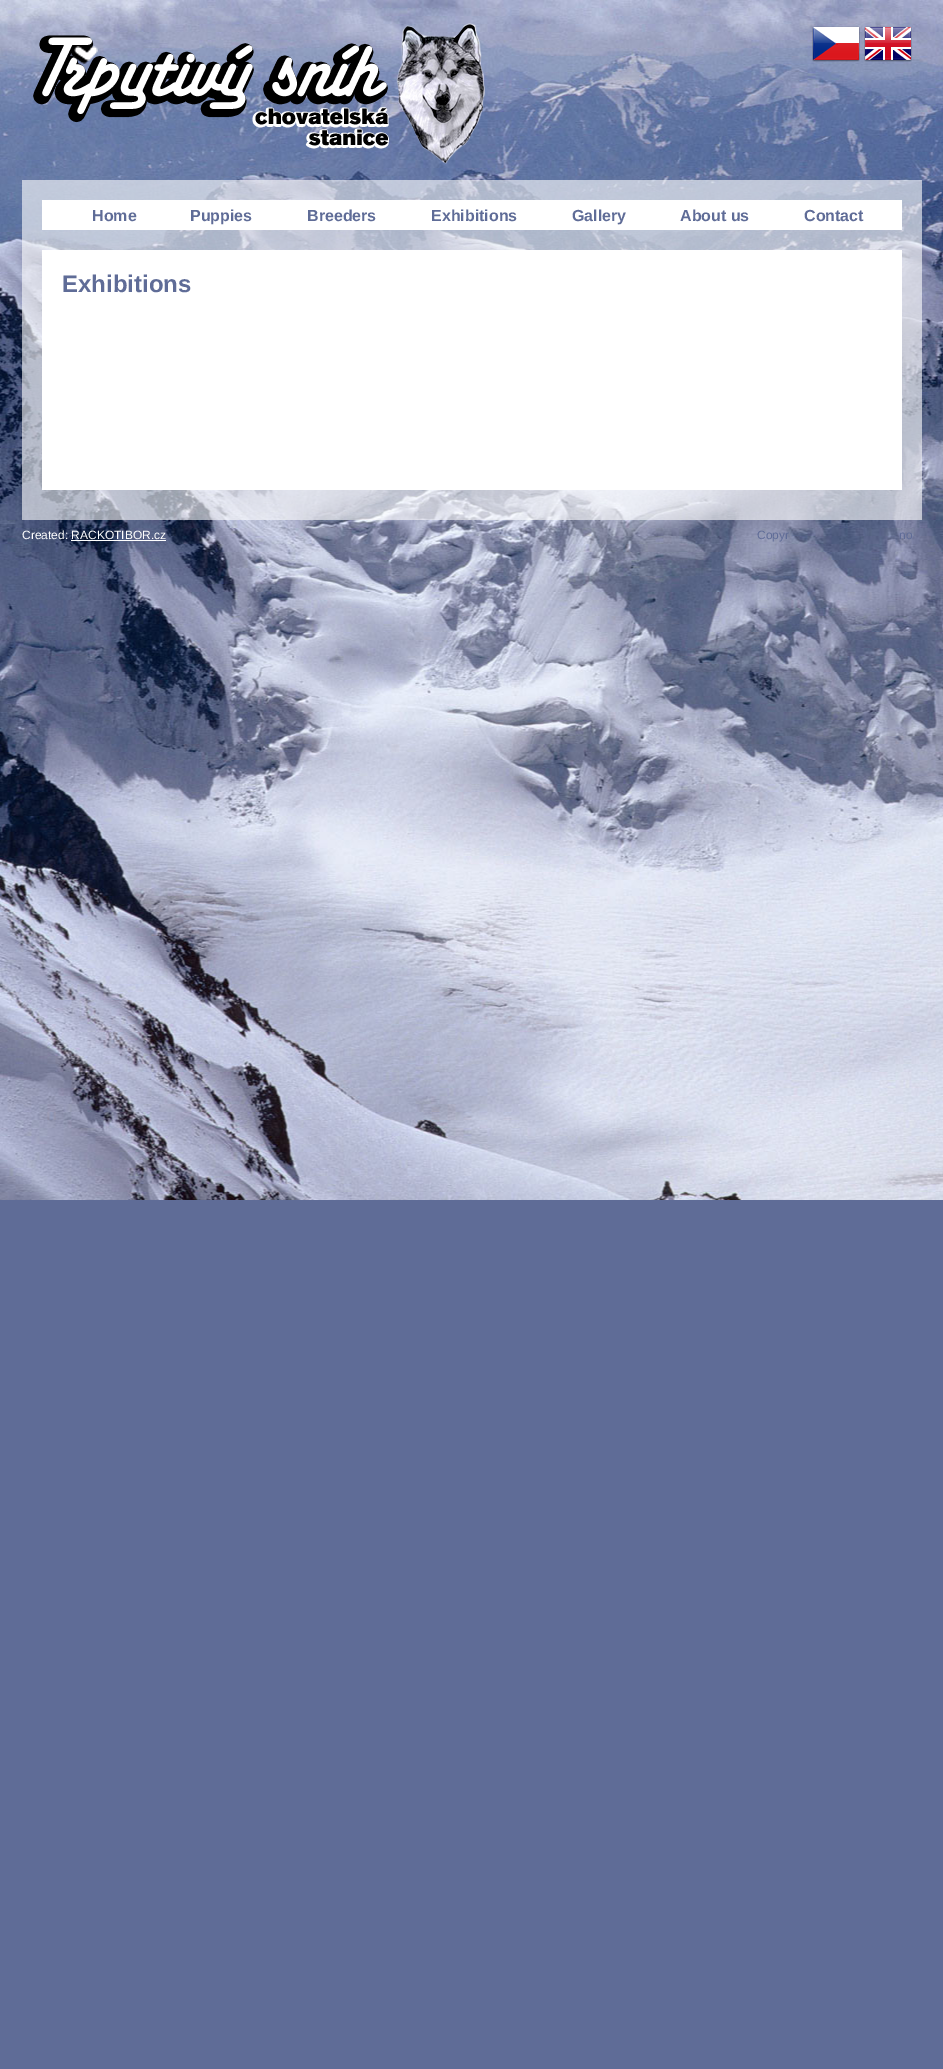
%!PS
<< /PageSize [943 2069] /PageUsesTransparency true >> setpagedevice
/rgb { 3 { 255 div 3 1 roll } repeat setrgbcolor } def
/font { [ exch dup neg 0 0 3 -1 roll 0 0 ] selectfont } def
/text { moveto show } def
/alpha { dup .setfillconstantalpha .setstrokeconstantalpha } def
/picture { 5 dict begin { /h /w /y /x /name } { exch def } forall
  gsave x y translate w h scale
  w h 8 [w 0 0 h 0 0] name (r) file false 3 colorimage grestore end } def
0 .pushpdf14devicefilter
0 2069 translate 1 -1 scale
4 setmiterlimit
95 108 151 rgb
0 0 943 2069 rectfill
(img_01.rgb) 0 0 943 1200 picture
(img_02.rgb) 33 23 452 141 picture
(img_03.rgb) 812 26 48 36 picture
(img_04.rgb) 864 26 48 36 picture
0.6 alpha
255 255 255 rgb
22 180 900 340 rectfill
1 alpha
42 200 860 30 rectfill
42 250 860 240 rectfill
71 540 95 1 rectfill
/LiberationSans-Bold 16 font
95 108 151 rgb
(Home) 92 221 text
(Puppies) 190 221 text
(Breeders) 307 221 text
(Exhibitions) 431 221 text
(Gallery) 572 221 text
(About us) 680 221 text
(Contact) 804 221 text
/LiberationSans-Bold 24 font
(Exhibitions) 62 292 text
/LiberationSans-Regular 12 font
255 255 255 rgb
(Created: RACKOTIBOR.cz) 22 539 text
95 108 151 rgb
(Copyr) 757 539 text
(no) 899 539 text
.poppdf14devicefilter showpage
